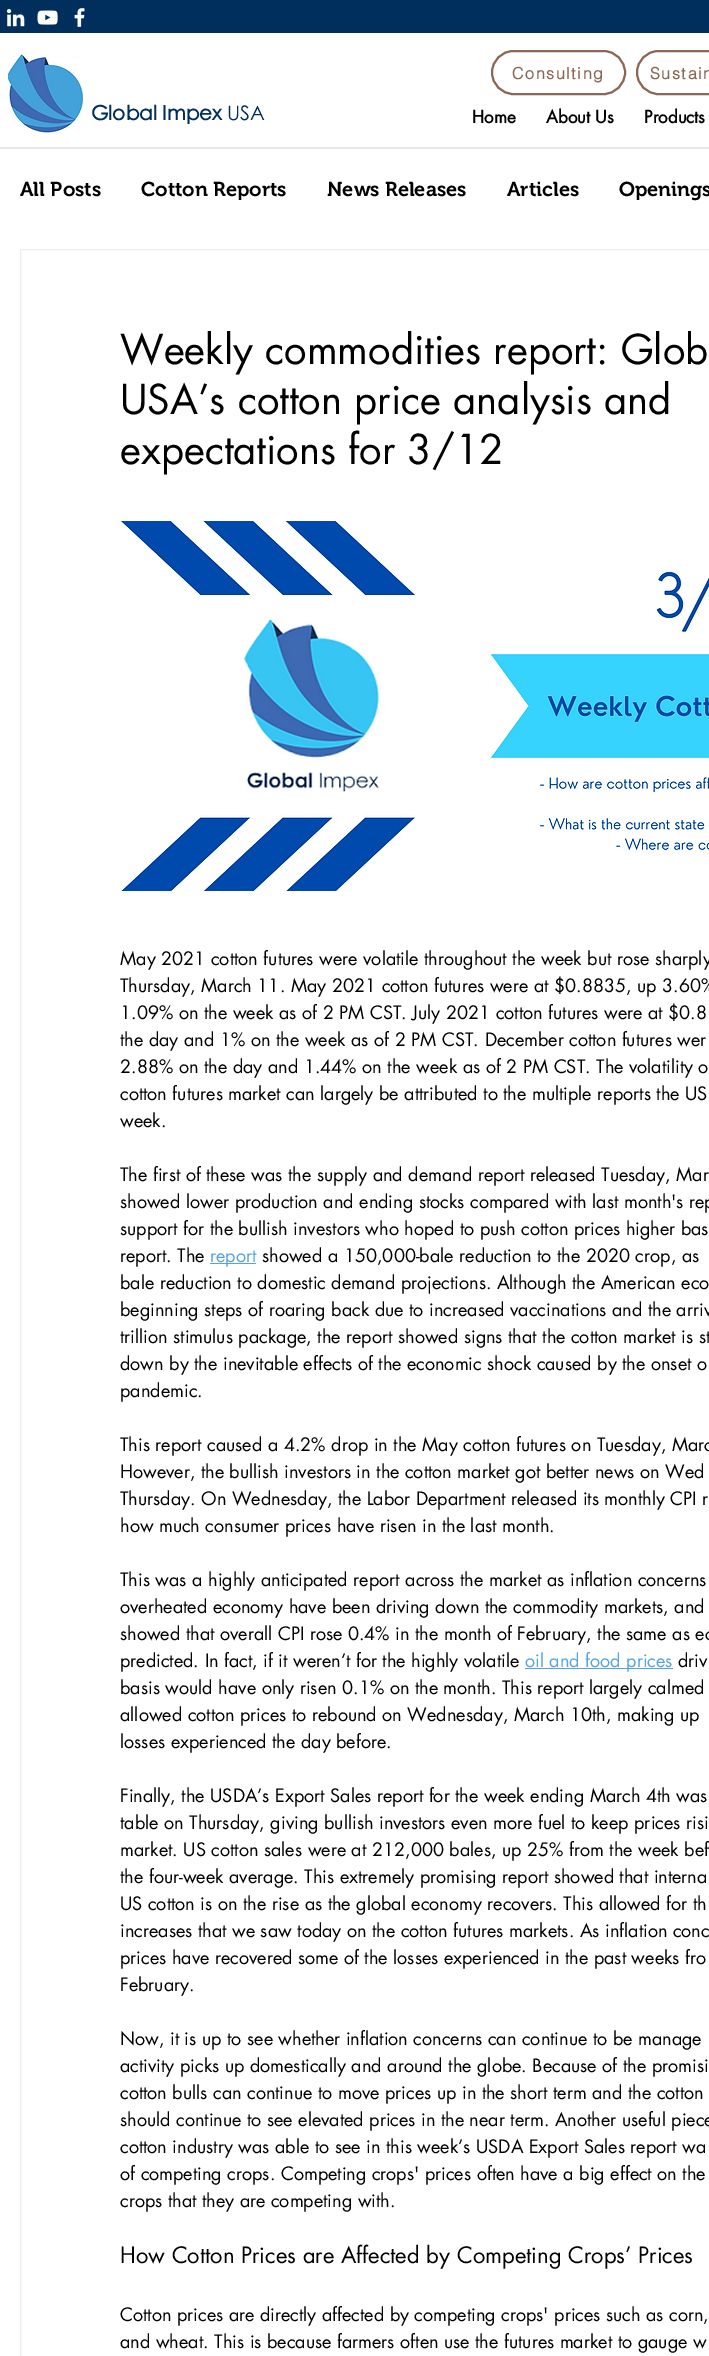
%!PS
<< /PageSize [709 2356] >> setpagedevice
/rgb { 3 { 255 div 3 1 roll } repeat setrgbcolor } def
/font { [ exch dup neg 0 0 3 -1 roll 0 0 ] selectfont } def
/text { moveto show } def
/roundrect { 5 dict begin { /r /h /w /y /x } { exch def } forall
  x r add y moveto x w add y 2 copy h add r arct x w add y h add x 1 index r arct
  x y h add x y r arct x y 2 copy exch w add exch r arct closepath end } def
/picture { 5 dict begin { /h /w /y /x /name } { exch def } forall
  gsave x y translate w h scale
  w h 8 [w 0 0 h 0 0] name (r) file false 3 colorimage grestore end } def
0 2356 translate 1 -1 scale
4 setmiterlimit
255 255 255 rgb
0 0 709 2356 rectfill
0 46 93 rgb
0 0 709 33 rectfill
(img_01.rgb) 6 8 19 19 picture
(img_02.rgb) 37 10 21 15 picture
(img_03.rgb) 74 8 11 19 picture
(img_04.rgb) 8 54 75 79 picture
139 103 85 rgb
2 setlinewidth
492 51 133 43 21.5 roundrect stroke
637 51 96 43 21.5 roundrect stroke
232 230 230 rgb
0 147 709 2 rectfill
238 236 236 rgb
1 setlinewidth
20.5 249.5 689 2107 rectstroke
(img_05.rgb) 121 521 588 370 picture
85 163 230 rgb
210 1263 46 1 rectfill
525 1668 148 1 rectfill
/helvetica-Bold 16 font
139 103 85 rgb
512 79 moveto 1.6 0 (Consulting) ashow
650 79 moveto 1.6 0 (Sustain) ashow
/CenturyGothic-Bold 20 font
0 46 93 rgb
(Global Impex) 91 120 text
/CenturyGothic-Regular 20 font
(USA) 227 120 text
/futura-Bold 17 font
0 0 0 rgb
(Home) 472 123 text
(About Us) 546 123 text
(Products) 644 123 text
/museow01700-SemiBold 20 font
(All Posts) 20 196 text
(Cotton Reports) 141 196 text
(News Releases) 327 196 text
(Articles) 507 196 text
(Openings) 619 196 text
/futura-Regular 40 font
(Weekly commodities report: Glob) 120 364 text
(USA’s cotton price analysis and) 120 414 text
(expectations for 3/12) 120 464 text
/futura-Regular 18 font
(May 2021 cotton futures were volatile throughout the week but rose sharply) 120 965 text
(Thursday, March 11. May 2021 cotton futures were at $0.8835, up 3.60%) 120 992 text
(1.09% on the week as of 2 PM CST. July 2021 cotton futures were at $0.8) 120 1019 text
(the day and 1% on the week as of 2 PM CST. December cotton futures wer) 120 1046 text
(2.88% on the day and 1.44% on the week as of 2 PM CST. The volatility o) 120 1073 text
(cotton futures market can largely be attributed to the multiple reports the US) 120 1100 text
(week.) 120 1127 text
(The first of these was the supply and demand report released Tuesday, Mar) 120 1181 text
(showed lower production and ending stocks compared with last month's rep) 120 1208 text
(support for the bullish investors who hoped to push cotton prices higher bas) 120 1235 text
(report. The) 120 1262 text
85 163 230 rgb
(report) 210 1262 text
0 0 0 rgb
(showed a 150,000-bale reduction to the 2020 crop, as) 262 1262 text
(bale reduction to domestic demand projections. Although the American eco) 120 1289 text
(beginning steps of roaring back due to increased vaccinations and the arriv) 120 1316 text
(trillion stimulus package, the report showed signs that the cotton market is st) 120 1343 text
(down by the inevitable effects of the economic shock caused by the onset o) 120 1370 text
(pandemic.) 120 1397 text
(This report caused a 4.2% drop in the May cotton futures on Tuesday, Marc) 120 1451 text
(However, the bullish investors in the cotton market got better news on Wed) 120 1478 text
(Thursday. On Wednesday, the Labor Department released its monthly CPI r) 120 1505 text
(how much consumer prices have risen in the last month.) 120 1532 text
(This was a highly anticipated report across the market as inflation concerns) 120 1586 text
(overheated economy have been driving down the commodity markets, and) 120 1613 text
(showed that overall CPI rose 0.4% in the month of February, the same as ec) 120 1640 text
(predicted. In fact, if it weren’t for the highly volatile) 120 1667 text
85 163 230 rgb
(oil and food prices) 525 1667 text
0 0 0 rgb
(driv) 678 1667 text
(basis would have only risen 0.1% on the month. This report largely calmed) 120 1694 text
(allowed cotton prices to rebound on Wednesday, March 10th, making up) 120 1721 text
(losses experienced the day before.) 120 1748 text
(Finally, the USDA’s Export Sales report for the week ending March 4th was) 120 1802 text
(table on Thursday, giving bullish investors even more fuel to keep prices risi) 120 1829 text
(market. US cotton sales were at 212,000 bales, up 25% from the week bef) 120 1856 text
(the four-week average. This extremely promising report showed that interna) 120 1883 text
(US cotton is on the rise as the global economy recovers. This allowed for th) 120 1910 text
(increases that we saw today on the cotton futures markets. As inflation conc) 120 1937 text
(prices have recovered some of the losses experienced in the past weeks fro) 120 1964 text
(February.) 120 1991 text
(Now, it is up to see whether inflation concerns can continue to be manage) 120 2045 text
(activity picks up domestically and around the globe. Because of the promisi) 120 2072 text
(cotton bulls can continue to move prices up in the short term and the cotton) 120 2099 text
(should continue to see elevated prices in the near term. Another useful piece) 120 2126 text
(cotton industry was able to see in this week’s USDA Export Sales report wa) 120 2153 text
(of competing crops. Competing crops' prices often have a big effect on the) 120 2180 text
(crops that they are competing with.) 120 2207 text
/futura-Regular 22 font
(How Cotton Prices are Affected by Competing Crops’ Prices) 120 2263 text
/futura-Regular 18 font
(Cotton prices are directly affected by competing crops' prices such as corn,) 120 2321 text
(and wheat. This is because farmers often use the futures market to gauge w) 120 2348 text
showpage
